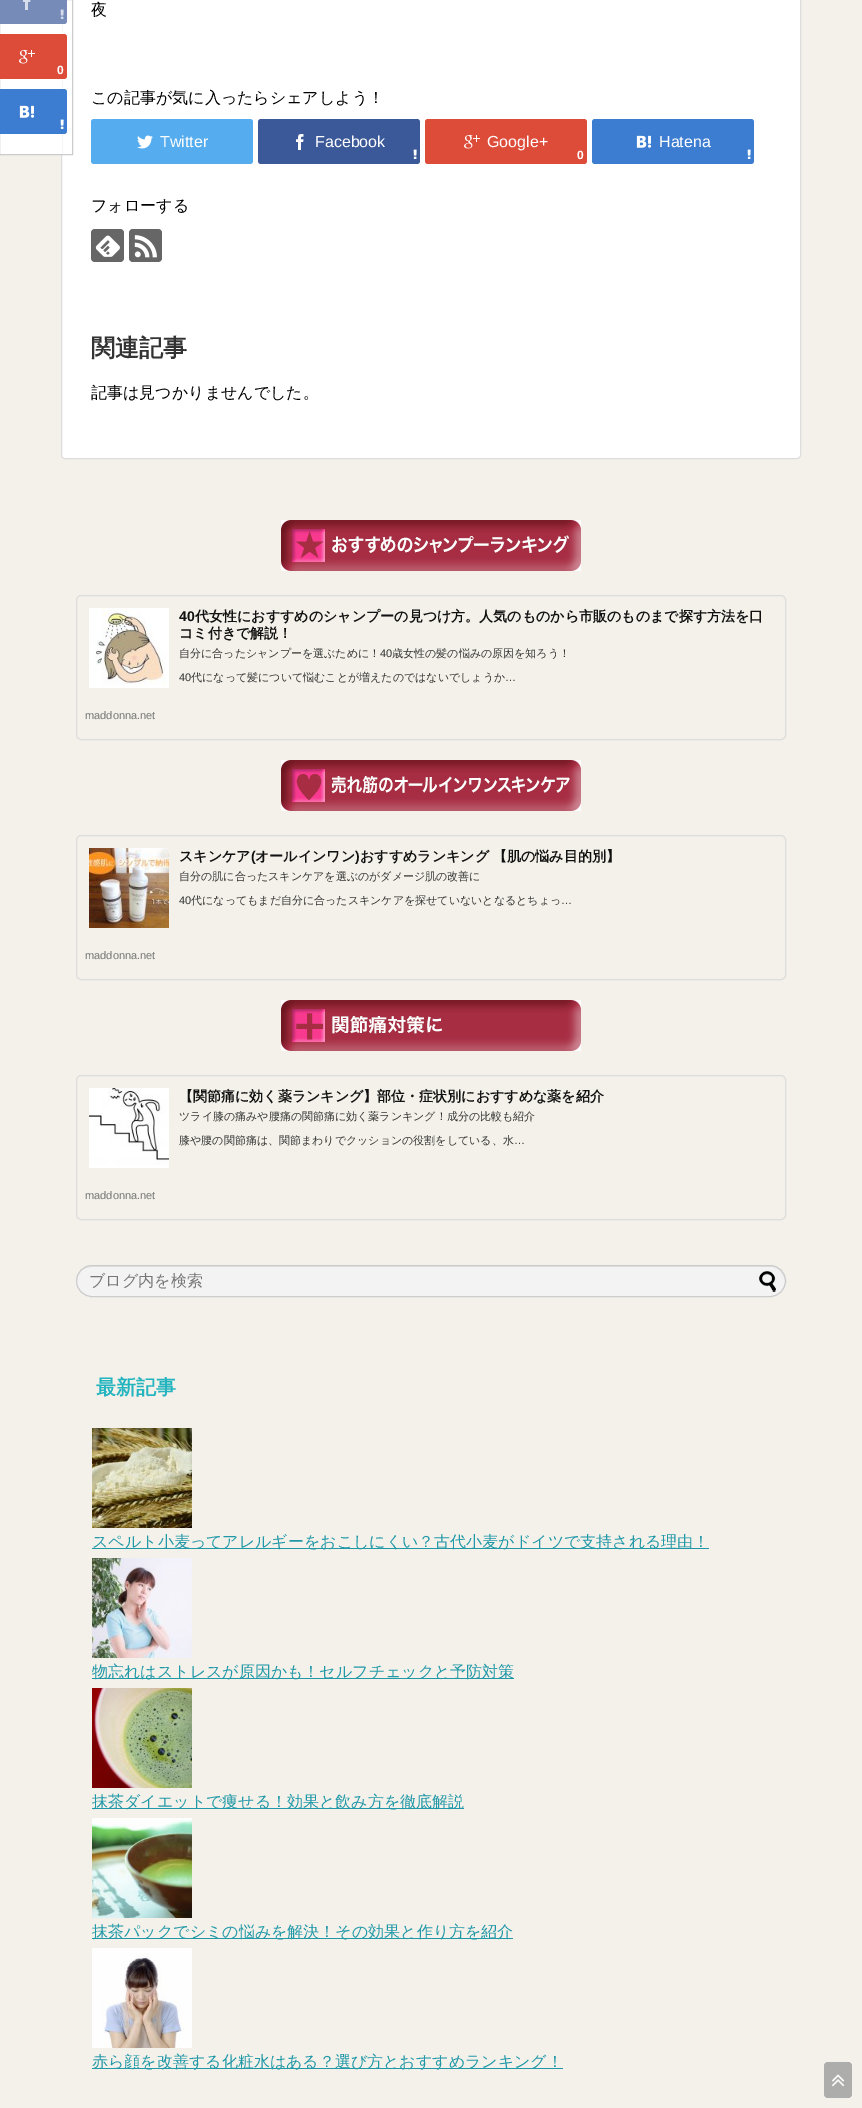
%!PS
<< /PageSize [862 2108] >> setpagedevice
/rgb { 3 { 255 div 3 1 roll } repeat setrgbcolor } def
/font { [ exch dup neg 0 0 3 -1 roll 0 0 ] selectfont } def
/text { moveto show } def
/roundrect { 5 dict begin { /r /h /w /y /x } { exch def } forall
  x r add y moveto x w add y 2 copy h add r arct x w add y h add x 1 index r arct
  x y h add x y r arct x y 2 copy exch w add exch r arct closepath end } def
/picture { 5 dict begin { /h /w /y /x /name } { exch def } forall
  gsave x y translate w h scale
  w h 8 [w 0 0 h 0 0] name (r) file false 3 colorimage grestore end } def
0 2108 translate 1 -1 scale
4 setmiterlimit
243 241 233 rgb
0 0 862 2108 rectfill
255 255 255 rgb
61.5 -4.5 739 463 3.5 roundrect gsave fill grestore
221 221 221 rgb
stroke
255 255 255 rgb
0 0 62 154 rectfill
204 204 204 rgb
-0.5 -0.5 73 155 rectstroke
118 139 183 rgb
-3 -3 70 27 3 roundrect fill
(img_01.rgb) 23 0 8 10 picture
(img_02.rgb) 60 9 4 10 picture
221 75 57 rgb
-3 34 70 45 3 roundrect fill
(img_03.rgb) 19 50 16 14 picture
60 125 209 rgb
-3 89 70 45 3 roundrect fill
(img_04.rgb) 19 105 16 13 picture
(img_05.rgb) 60 119 4 10 picture
85 172 238 rgb
91 119 162 45 3 roundrect fill
(img_06.rgb) 137 135 16 14 picture
59 89 152 rgb
258 119 162 45 3 roundrect fill
(img_07.rgb) 296 134 8 16 picture
(img_08.rgb) 413 149 4 10 picture
221 75 57 rgb
425 119 162 45 3 roundrect fill
(img_03.rgb) 464 135 16 14 picture
60 125 209 rgb
592 119 162 45 3 roundrect fill
(img_04.rgb) 636 135 16 13 picture
(img_05.rgb) 747 149 4 10 picture
102 102 102 rgb
91 229 33 33 4 roundrect fill
(img_09.rgb) 95 235 25 22 picture
129 229 33 33 4 roundrect fill
(img_10.rgb) 134 235 23 23 picture
(img_11.rgb) 281 520 300 51 picture
221 221 221 rgb
76.5 595.5 709 144 4.5 roundrect stroke
(img_12.rgb) 89 608 80 80 picture
(img_13.rgb) 281 760 300 51 picture
76.5 835.5 709 144 4.5 roundrect stroke
(img_14.rgb) 89 848 80 80 picture
(img_15.rgb) 281 1000 300 51 picture
76.5 1075.5 709 144 4.5 roundrect stroke
(img_16.rgb) 89 1088 80 80 picture
243 243 243 rgb
76 1265 710 32 16 roundrect fill
225 225 225 rgb
92 1267 moveto 681 0 rlineto 10 2 15 15 9 23 rcurveto 5 -7 3 -17 -4 -21 rcurveto -2 -2 -5 -3 -8 -3 rcurveto -678 0 rlineto -8 0 -15 7 -15 15 rcurveto 0 -7 5 -14 15 -14 rcurveto closepath fill
204 204 204 rgb
76.5 1265.5 709 31 15.5 roundrect stroke
(img_17.rgb) 759 1271 17 21 picture
(img_18.rgb) 92 1428 100 100 picture
32 152 168 rgb
92 1548 617 1 rectfill
(img_19.rgb) 92 1558 100 100 picture
92 1678 422 1 rectfill
(img_20.rgb) 92 1688 100 100 picture
92 1808 372 1 rectfill
(img_21.rgb) 92 1818 100 100 picture
92 1938 421 1 rectfill
(img_22.rgb) 92 1948 100 100 picture
92 2068 471 1 rectfill
173 173 172 rgb
824 2062 28 36 4 roundrect fill
(img_23.rgb) 832 2074 13 13 picture
/WenQuanYiZenHei-Medium 16 font
0 0 0 rgb
(夜) 91 15 text
/LiberationSans-Bold 12 font
255 255 255 rgb
(0) 57 74 text
/WenQuanYiZenHei-Medium 16 font
0 0 0 rgb
(この記事が気に入ったらシェアしよう！) 91 103 text
/LiberationSans-Regular 16 font
255 255 255 rgb
(Twitter) 160 147 text
(Facebook) 315 147 text
(Google+) 487 147 text
/LiberationSans-Bold 12 font
(0) 577 159 text
/LiberationSans-Regular 16 font
(Hatena) 659 147 text
/WenQuanYiZenHei-Medium 16 font
0 0 0 rgb
(フォローする) 91 211 text
/WenQuanYiZenHei-Bold 24 font
51 51 51 rgb
(関連記事) 91 356 text
/WenQuanYiZenHei-Medium 16 font
0 0 0 rgb
(記事は見つかりませんでした。) 91 398 text
/LiberationSans-Bold 14 font
17 17 17 rgb
(40) 179 621 text
/WenQuanYiZenHei-Bold 14 font
(代女性におすすめのシャンプーの見つけ方。人気のものから市販のものまで探す方法を口) 195 621 text
(コミ付きで解説！) 179 638 text
/WenQuanYiZenHei-Medium 11 font
51 51 51 rgb
(自分に合ったシャンプーを選ぶために！) 179 657 text
/LiberationSans-Regular 11 font
(40) 380 657 text
/WenQuanYiZenHei-Medium 11 font
(歳女性の髪の悩みの原因を知ろう！) 392 657 text
/LiberationSans-Regular 11 font
(40) 179 681 text
/WenQuanYiZenHei-Medium 11 font
(代になって髪について悩むことが増えたのではないでしょうか) 191 681 text
/LiberationSans-Regular 11 font
(…) 505 681 text
119 119 119 rgb
(maddonna.net) 85 719 text
/WenQuanYiZenHei-Bold 14 font
17 17 17 rgb
(スキンケア) 179 861 text
/LiberationSans-Bold 14 font
(\() 251 861 text
/WenQuanYiZenHei-Bold 14 font
(オールインワン) 255 861 text
/LiberationSans-Bold 14 font
(\)) 355 861 text
/WenQuanYiZenHei-Bold 14 font
(おすすめランキング 【肌の悩み目的別】) 360 861 text
/WenQuanYiZenHei-Medium 11 font
51 51 51 rgb
(自分の肌に合ったスキンケアを選ぶのがダメージ肌の改善に) 179 880 text
/LiberationSans-Regular 11 font
(40) 179 904 text
/WenQuanYiZenHei-Medium 11 font
(代になってもまだ自分に合ったスキンケアを探せていないとなるとちょっ) 191 904 text
/LiberationSans-Regular 11 font
(…) 561 904 text
119 119 119 rgb
(maddonna.net) 85 959 text
/WenQuanYiZenHei-Bold 14 font
17 17 17 rgb
(【関節痛に効く薬ランキング】部位・症状別におすすめな薬を紹介) 179 1101 text
/WenQuanYiZenHei-Medium 11 font
51 51 51 rgb
(ツライ膝の痛みや腰痛の関節痛に効く薬ランキング！成分の比較も紹介) 179 1120 text
(膝や腰の関節痛は、関節まわりでクッションの役割をしている、水) 179 1144 text
/LiberationSans-Regular 11 font
(…) 514 1144 text
119 119 119 rgb
(maddonna.net) 85 1199 text
/WenQuanYiZenHei-Medium 16 font
(ブログ内を検索) 89 1286 text
/WenQuanYiZenHei-Bold 20 font
36 180 192 rgb
(最新記事) 96 1394 text
/WenQuanYiZenHei-Medium 16 font
32 152 168 rgb
(スペルト小麦ってアレルギーをおこしにくい？古代小麦がドイツで支持される理由！) 92 1547 text
(物忘れはストレスが原因かも！セルフチェックと予防対策) 92 1677 text
(抹茶ダイエットで痩せる！効果と飲み方を徹底解説) 92 1807 text
(抹茶パックでシミの悩みを解決！その効果と作り方を紹介) 92 1937 text
(赤ら顔を改善する化粧水はある？選び方とおすすめランキング！) 92 2067 text
showpage
